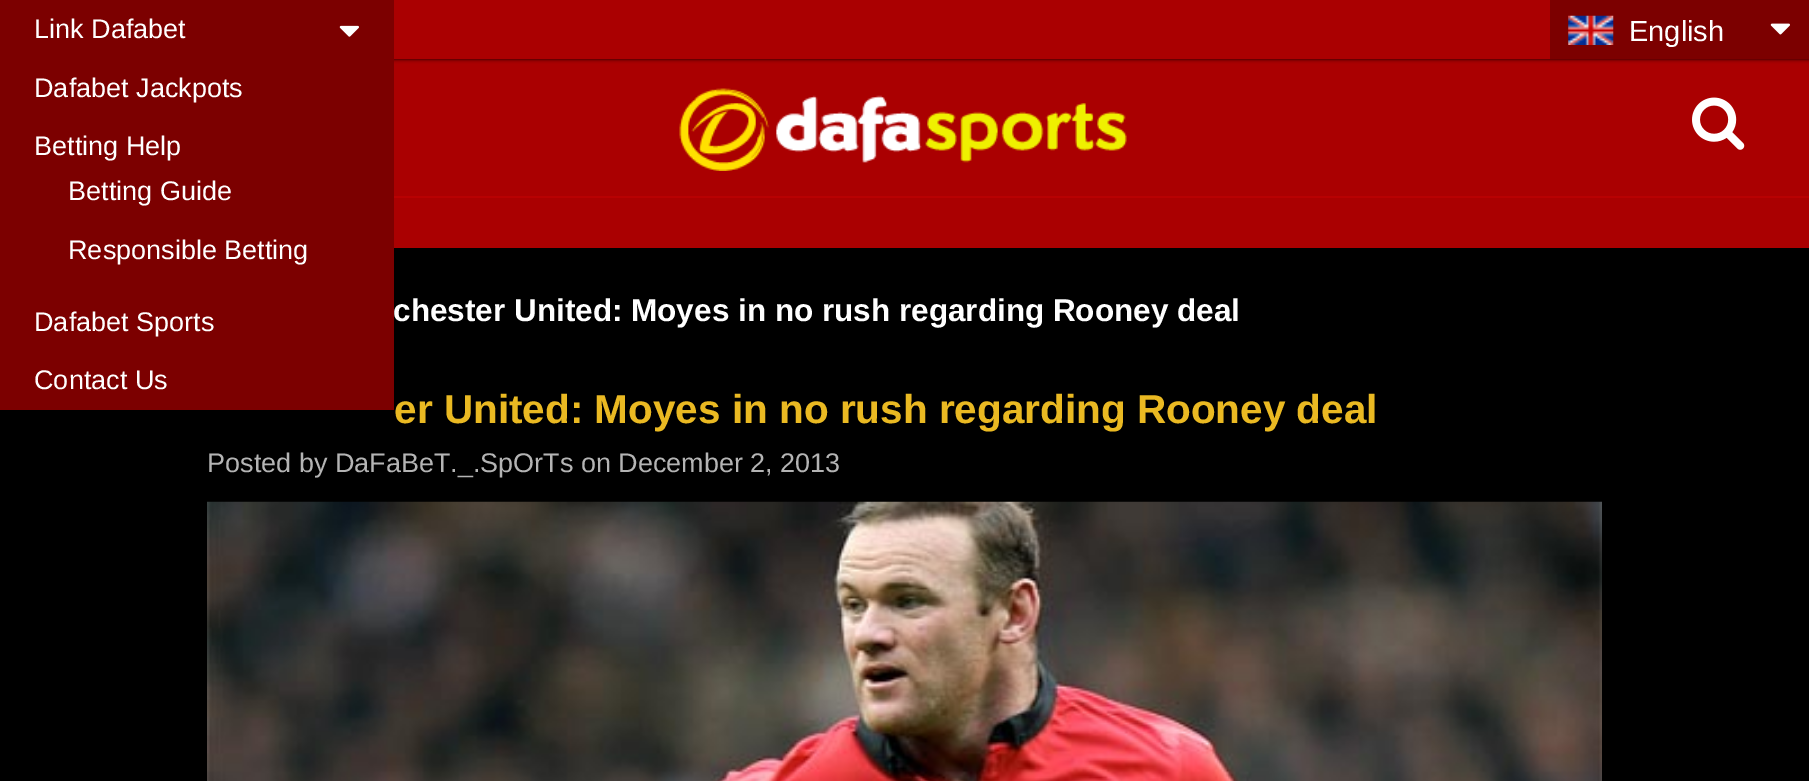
%!PS
<< /PageSize [1809 781] /PageUsesTransparency true >> setpagedevice
/rgb { 3 { 255 div 3 1 roll } repeat setrgbcolor } def
/font { [ exch dup neg 0 0 3 -1 roll 0 0 ] selectfont } def
/text { moveto show } def
/alpha { dup .setfillconstantalpha .setstrokeconstantalpha } def
/roundrect { 5 dict begin { /r /h /w /y /x } { exch def } forall
  x r add y moveto x w add y 2 copy h add r arct x w add y h add x 1 index r arct
  x y h add x y r arct x y 2 copy exch w add exch r arct closepath end } def
/shadow { 12 dict begin { /a /b /q /h /w /y /x } { exch def } forall gsave /was 0 def
  9 -2 -9 { dup b mul 4 div /e exch def 1 sub .425 mul 2.718 exch exp 1 add a .99 .min exch div /now exch def
    1 1 now sub 1 was sub div sub alpha /was now def
    w h .min e 2 mul add 0 gt { x e sub y e sub w e 2 mul add h e 2 mul add
      q e add b .6 mul add w h .min 2 div e add .min 0 .max roundrect fill } if } for grestore end } def
/picture { 5 dict begin { /h /w /y /x /name } { exch def } forall
  gsave x y translate w h scale
  w h 8 [w 0 0 h 0 0] name (r) file false 3 colorimage grestore end } def
0 .pushpdf14devicefilter
0 781 translate 1 -1 scale
4 setmiterlimit
0 0 0 rgb
0 0 1809 781 rectfill
170 0 1 rgb
394 0 1415 248 rectfill
gsave
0 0 moveto 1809 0 rlineto 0 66 rlineto -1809 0 rlineto closepath 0 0 moveto 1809 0 rlineto 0 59 rlineto -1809 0 rlineto closepath eoclip newpath
0 0 0 rgb
0 0 1809 59 0 2 1 shadow
grestore
124 0 0 rgb
1550 0 259 59 rectfill
(img_02.rgb) 1568 15 46 30 picture
(img_03.rgb) 1770 23 20 12 picture
184 1 2 rgb
394 196 1415 2 rectfill
(img_04.rgb) 679 88 448 83 picture
(img_05.rgb) 1692 97 53 53 picture
(img_06.rgb) 207 501 1395 280 picture
/LiberationSans-Regular 29 font
255 255 255 rgb
(English) 1629 41 text
/LiberationSans-Bold 31.5 font
(chester United: Moyes in no rush regarding Rooney deal) 393 321 text
124 0 0 rgb
0 0 394 410 rectfill
(img_01.rgb) 339 25 20 12 picture
/LiberationSans-Regular 27 font
255 255 255 rgb
(Contact Us) 34 389 text
(Dafabet Sports) 34 331 text
(Responsible Betting) 68 259 text
(Betting Guide) 68 200 text
(Betting Help) 34 155 text
(Dafabet Jackpots) 34 97 text
(Link Dafabet) 34 38 text
/LiberationSans-Bold 40.5 font
234 185 34 rgb
(er United: Moyes in no rush regarding Rooney deal) 394 423 text
/LiberationSans-Regular 27 font
180 180 180 rgb
(Posted by DaFaBeT._.SpOrTs on December 2, 2013) 207 472 text
.poppdf14devicefilter showpage
